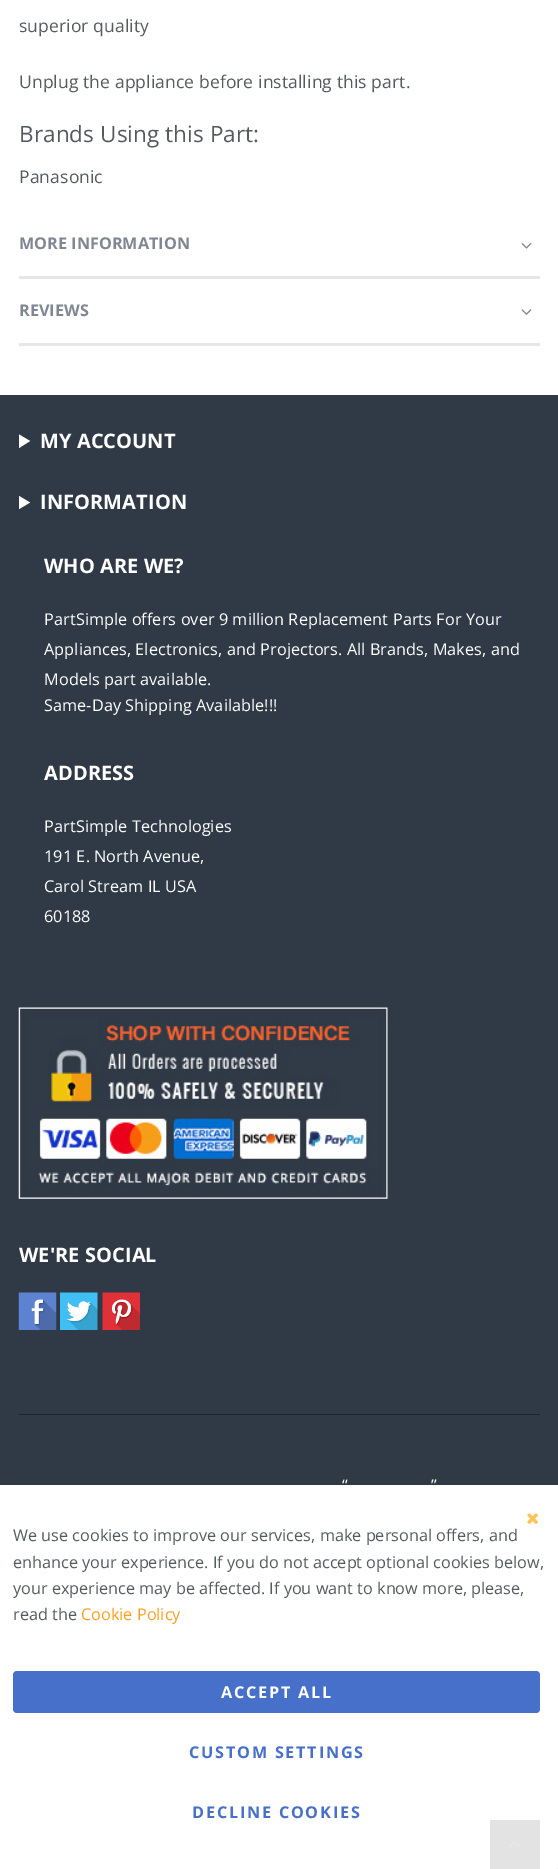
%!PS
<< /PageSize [558 1869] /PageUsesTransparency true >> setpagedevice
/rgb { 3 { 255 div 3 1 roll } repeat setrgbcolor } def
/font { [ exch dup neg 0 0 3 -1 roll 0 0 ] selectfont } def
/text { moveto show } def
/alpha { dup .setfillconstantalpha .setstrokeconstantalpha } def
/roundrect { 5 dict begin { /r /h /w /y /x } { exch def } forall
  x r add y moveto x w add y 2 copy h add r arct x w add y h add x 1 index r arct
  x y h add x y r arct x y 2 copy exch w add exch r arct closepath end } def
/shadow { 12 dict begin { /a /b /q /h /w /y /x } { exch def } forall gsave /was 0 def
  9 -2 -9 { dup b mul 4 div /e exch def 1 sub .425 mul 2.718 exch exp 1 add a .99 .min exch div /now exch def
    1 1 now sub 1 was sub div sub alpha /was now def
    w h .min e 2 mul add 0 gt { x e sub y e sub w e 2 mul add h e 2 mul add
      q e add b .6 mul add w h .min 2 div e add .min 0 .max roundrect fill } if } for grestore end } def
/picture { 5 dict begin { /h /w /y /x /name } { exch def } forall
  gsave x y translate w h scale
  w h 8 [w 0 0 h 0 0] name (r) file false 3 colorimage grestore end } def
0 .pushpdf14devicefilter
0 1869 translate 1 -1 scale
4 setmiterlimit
255 255 255 rgb
0 0 558 1869 rectfill
231 231 231 rgb
19 276 521 3 rectfill
(img_01.rgb) 521 243 11 6 picture
19 343 521 3 rectfill
(img_02.rgb) 521 309 11 6 picture
48 58 70 rgb
0 395 558 1090 rectfill
255 255 255 rgb
19 434.5 moveto 11 6.5 rlineto -11 7 rlineto closepath fill
19 496 moveto 11 6.5 rlineto -11 6.5 rlineto closepath fill
(img_03.rgb) 18 1007 370 192 picture
(img_04.rgb) 18 1292 39 38 picture
(img_05.rgb) 60 1292 38 38 picture
(img_06.rgb) 102 1292 38 38 picture
31 35 47 rgb
19 1414 521 1 rectfill
0 0 0 rgb
0 1483 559 385 0 11 0.06 shadow
255 255 255 rgb
0 1485 558 384 rectfill
227 227 227 rgb
490 1820 50 49 rectfill
(img_07.rgb) 509 1841 11 6 picture
(img_08.rgb) 527 1513 11 11 picture
70 112 201 rgb
13 1671 527 42 4 roundrect fill
245 245 245 rgb
556 1868 2 1 rectfill
/OpenSans-Regular 17.5 font
84 90 94 rgb
19 32 moveto 0.1 0 (superior quality) ashow
19 88 moveto 0.1 0 (Unplug the appliance before installing this part.) ashow
/OpenSans-Regular 22.5 font
19 142 moveto 0.1 0 (Brands Using this Part:) ashow
/OpenSans-Regular 17.5 font
19 183 moveto 0.1 0 (Panasonic) ashow
/OpenSans-Bold 16.25 font
129 134 146 rgb
(MORE INFORMATION) 19 249 text
(REVIEWS) 19 316 text
/OpenSans-Bold 20 font
255 255 255 rgb
40 448 moveto 0.08 0 (MY ACCOUNT) ashow
40 509 moveto 0.08 0 (INFORMATION) ashow
44 573 moveto 0.08 0 (WHO ARE WE?) ashow
/OpenSans-Regular 16.25 font
44 625 moveto 0.08 0 (PartSimple offers over 9 million Replacement Parts For Your) ashow
44 655 moveto 0.08 0 (Appliances, Electronics, and Projectors. All Brands, Makes, and) ashow
44 685 moveto 0.08 0 (Models part available.) ashow
44 711 moveto 0.08 0 (Same-Day Shipping Available!!!) ashow
/OpenSans-Bold 20 font
44 780 moveto 0.08 0 (ADDRESS) ashow
/OpenSans-Regular 16.25 font
44 832 moveto 0.08 0 (PartSimple Technologies) ashow
44 862 moveto 0.08 0 (191 E. North Avenue,) ashow
44 892 moveto 0.08 0 (Carol Stream IL USA) ashow
44 922 moveto 0.08 0 (60188) ashow
/OpenSans-Bold 20 font
19 1262 moveto 0.08 0 (WE'RE SOCIAL) ashow
/OpenSans-Regular 16.25 font
342 1491 moveto 0.08 0 (“) ashow
431 1491 moveto 0.08 0 (”) ashow
84 90 94 rgb
(We use cookies to improve our services, make personal offers, and) 13 1541 text
(enhance your experience. If you do not accept optional cookies below,) 13 1568 text
gsave
13 1523 533 105 rectclip
(your experience may be affected. If you want to know more, please,) 13 1594 text
grestore
(read the) 13 1620 text
252 159 28 rgb
(Cookie Policy) 81 1620 text
/OpenSans-Bold 16.25 font
255 255 255 rgb
221 1698 moveto 1.75 0 (ACCEPT ALL) ashow
70 112 201 rgb
189 1758 moveto 1.75 0 (CUSTOM SETTINGS) ashow
192 1818 moveto 1.75 0 (DECLINE COOKIES) ashow
.poppdf14devicefilter showpage
